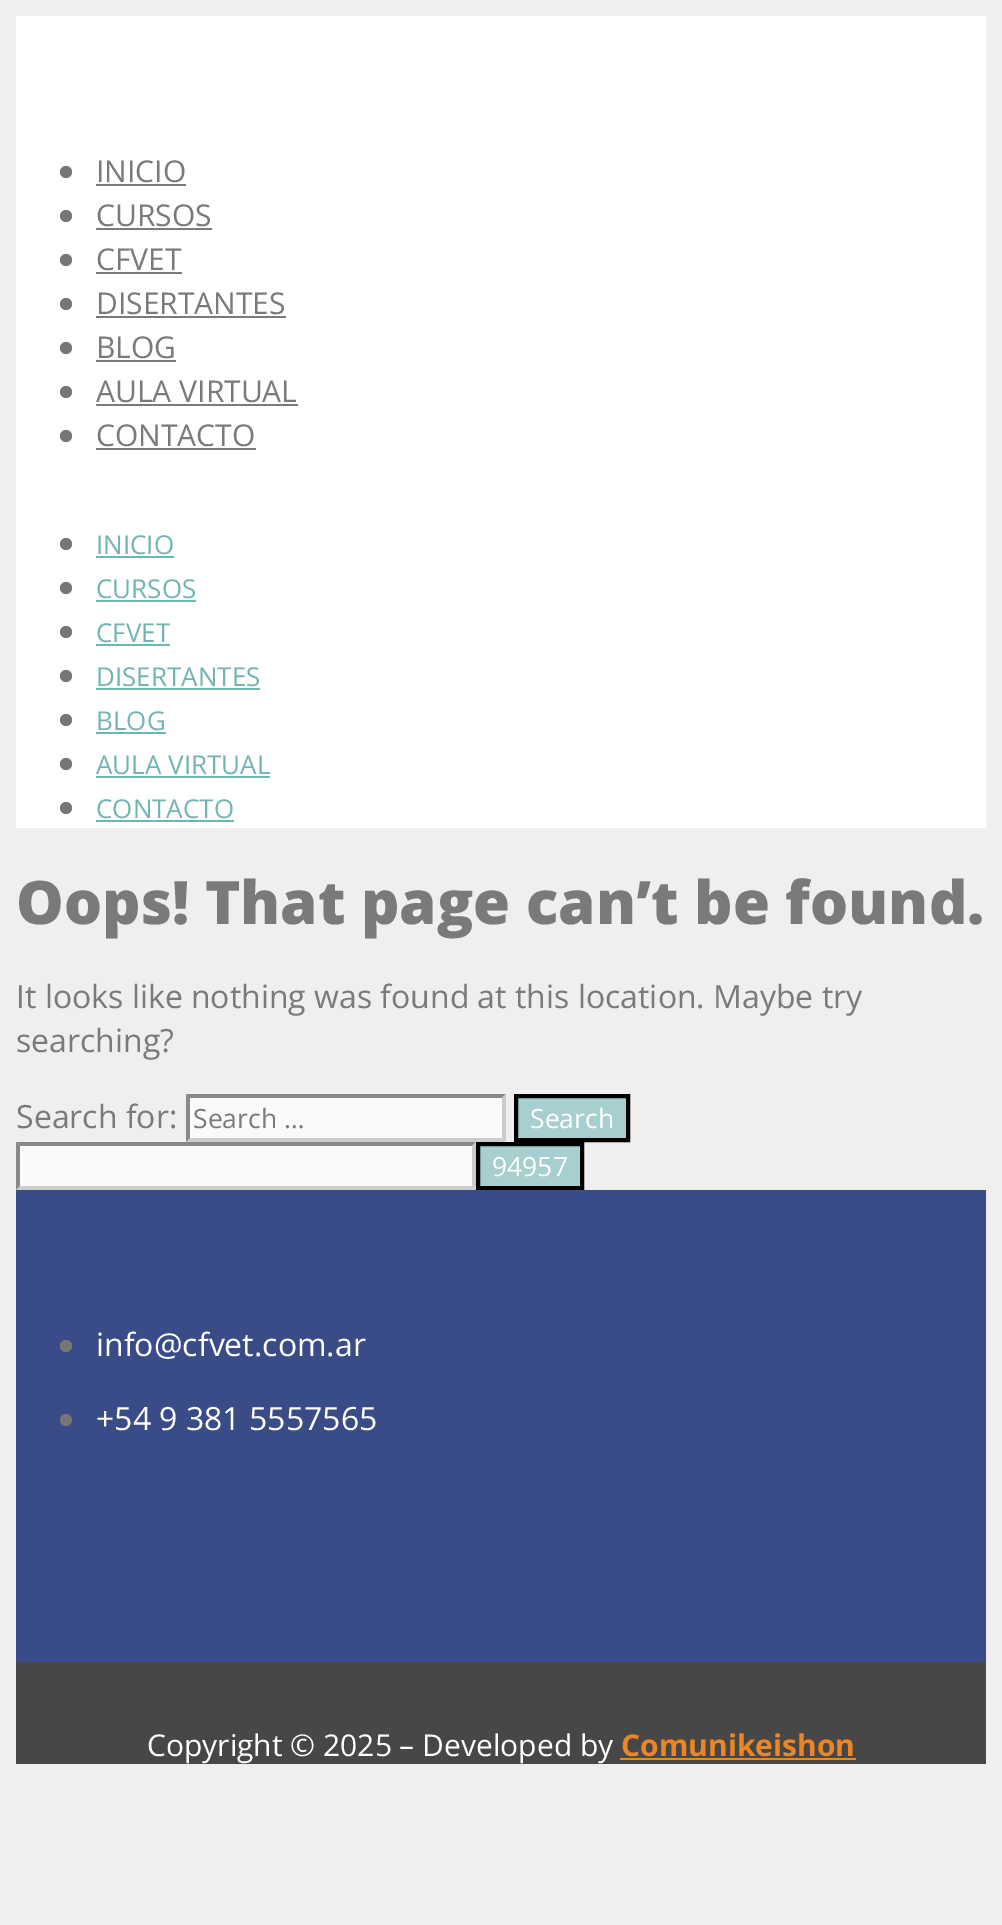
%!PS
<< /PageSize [1002 1925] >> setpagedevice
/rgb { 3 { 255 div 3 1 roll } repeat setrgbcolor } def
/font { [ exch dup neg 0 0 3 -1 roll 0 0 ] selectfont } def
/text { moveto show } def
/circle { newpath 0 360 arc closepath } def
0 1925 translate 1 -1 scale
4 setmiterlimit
239 239 239 rgb
0 0 1002 1925 rectfill
255 255 255 rgb
16 16 970 812 rectfill
118 118 117 rgb
66 172 6 circle fill
122 122 122 rgb
96 184 90 2 rectfill
118 118 117 rgb
66 216 6 circle fill
122 122 122 rgb
96 228 116 2 rectfill
118 118 117 rgb
66 260 6 circle fill
122 122 122 rgb
96 272 86 2 rectfill
118 118 117 rgb
66 304 6 circle fill
122 122 122 rgb
96 316 190 2 rectfill
118 118 117 rgb
66 348 6 circle fill
122 122 122 rgb
96 360 80 2 rectfill
118 118 117 rgb
66 392 6 circle fill
122 122 122 rgb
96 404 202 2 rectfill
118 118 117 rgb
66 436 6 circle fill
122 122 122 rgb
96 448 160 2 rectfill
118 118 117 rgb
66 544 6 circle fill
113 181 179 rgb
96 556 78 2 rectfill
118 118 117 rgb
66 588 6 circle fill
113 181 179 rgb
96 600 100 2 rectfill
118 118 117 rgb
66 632 6 circle fill
113 181 179 rgb
96 644 74 2 rectfill
118 118 117 rgb
66 676 6 circle fill
113 181 179 rgb
96 688 164 2 rectfill
118 118 117 rgb
66 720 6 circle fill
113 181 179 rgb
96 732 70 2 rectfill
118 118 117 rgb
66 764 6 circle fill
113 181 179 rgb
96 776 174 2 rectfill
118 118 117 rgb
66 808 6 circle fill
113 181 179 rgb
96 820 138 2 rectfill
250 250 250 rgb
186 1094 320 48 rectfill
136 136 136 rgb
186 1094 moveto 320 0 rlineto -4 4 rlineto -312 0 rlineto closepath fill
204 204 204 rgb
506 1094 moveto 0 48 rlineto -4 -4 rlineto 0 -40 rlineto closepath fill
506 1142 moveto -320 0 rlineto 4 -4 rlineto 312 0 rlineto closepath fill
136 136 136 rgb
186 1142 moveto 0 -48 rlineto 4 4 rlineto 0 40 rlineto closepath fill
167 207 208 rgb
516 1096 moveto 112 0 rlineto 0 44 rlineto -112 0 rlineto closepath gsave fill grestore
0 0 0 rgb
4 setlinewidth
stroke
250 250 250 rgb
16 1142 460 48 rectfill
136 136 136 rgb
16 1142 moveto 460 0 rlineto -4 4 rlineto -452 0 rlineto closepath fill
204 204 204 rgb
476 1142 moveto 0 48 rlineto -4 -4 rlineto 0 -40 rlineto closepath fill
476 1190 moveto -460 0 rlineto 4 -4 rlineto 452 0 rlineto closepath fill
136 136 136 rgb
16 1190 moveto 0 -48 rlineto 4 4 rlineto 0 40 rlineto closepath fill
167 207 208 rgb
478 1144 moveto 104 0 rlineto 0 44 rlineto -104 0 rlineto closepath gsave fill grestore
0 0 0 rgb
stroke
58 76 135 rgb
16 1190 970 472 rectfill
118 118 117 rgb
66 1346 6 circle fill
66 1420 6 circle fill
71 71 71 rgb
16 1662 970 102 rectfill
234 134 35 rgb
620 1758 236 2 rectfill
/OpenSans-Regular 30 font
122 122 122 rgb
(INICIO) 96 182 text
(CURSOS) 96 226 text
(CFVET) 96 270 text
(DISERTANTES) 96 314 text
(BLOG) 96 358 text
(AULA VIRTUAL) 96 402 text
(CONTACTO) 96 446 text
/OpenSans-Regular 26 font
113 181 179 rgb
(INICIO) 96 554 text
(CURSOS) 96 598 text
(CFVET) 96 642 text
(DISERTANTES) 96 686 text
(BLOG) 96 730 text
(AULA VIRTUAL) 96 774 text
(CONTACTO) 96 818 text
/OpenSans-ExtraBold 60 font
122 122 122 rgb
(Oops! That page can’t be found.) 16 924 text
/OpenSans-Regular 32 font
(It looks like nothing was found at this location. Maybe try) 16 1008 text
(searching?) 16 1052 text
(Search for:) 16 1128 text
/OpenSans-Regular 26.5 font
(Search …) 193 1128 text
255 255 255 rgb
(Search) 530 1128 text
(94957) 492 1176 text
/OpenSans-Regular 32 font
(info@cfvet.com.ar) 96 1356 text
(+54 9 381 5557565) 96 1430 text
/OpenSans-Regular 30 font
(Copyright © 2025 – Developed by) 147 1756 text
/OpenSans-Bold 30 font
234 134 35 rgb
(Comunikeishon) 621 1756 text
showpage
